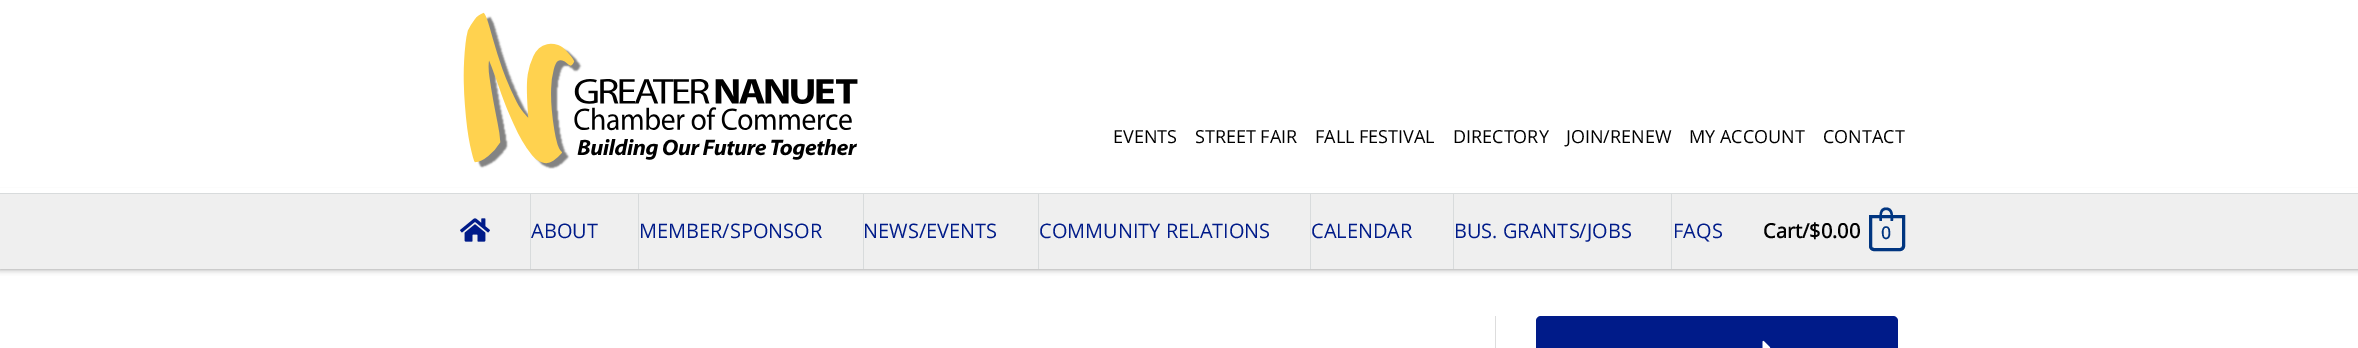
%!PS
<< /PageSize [2358 348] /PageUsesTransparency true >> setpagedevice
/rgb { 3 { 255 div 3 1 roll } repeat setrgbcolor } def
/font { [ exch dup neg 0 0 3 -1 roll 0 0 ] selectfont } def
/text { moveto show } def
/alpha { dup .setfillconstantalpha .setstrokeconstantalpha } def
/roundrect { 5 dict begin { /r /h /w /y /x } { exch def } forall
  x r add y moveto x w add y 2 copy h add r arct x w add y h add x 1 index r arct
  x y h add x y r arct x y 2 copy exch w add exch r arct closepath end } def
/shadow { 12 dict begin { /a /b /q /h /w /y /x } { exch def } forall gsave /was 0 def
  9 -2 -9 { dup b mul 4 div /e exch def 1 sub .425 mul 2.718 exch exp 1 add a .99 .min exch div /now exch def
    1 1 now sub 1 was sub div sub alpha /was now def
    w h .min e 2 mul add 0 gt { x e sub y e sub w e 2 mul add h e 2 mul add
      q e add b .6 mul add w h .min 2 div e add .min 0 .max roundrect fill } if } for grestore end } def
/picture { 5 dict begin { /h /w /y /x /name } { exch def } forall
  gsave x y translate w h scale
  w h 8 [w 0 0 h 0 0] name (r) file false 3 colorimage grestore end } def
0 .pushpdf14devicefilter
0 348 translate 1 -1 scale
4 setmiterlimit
255 255 255 rgb
0 0 2358 348 rectfill
136 136 136 rgb
0 194 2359 75 0 3 1 shadow
255 255 255 rgb
0 188 2358 5 rectfill
216 219 220 rgb
0 193 2358 1 rectfill
(img_01.rgb) 463 12 395 157 picture
239 239 239 rgb
0 194 2358 75 rectfill
216 219 220 rgb
530 194 1 75 rectfill
(img_02.rgb) 460 218 30 24 picture
638 194 1 75 rectfill
863 194 1 75 rectfill
1038 194 1 75 rectfill
1310 194 1 75 rectfill
1453 194 1 75 rectfill
1671 194 1 75 rectfill
0 53 128 rgb
3 setlinewidth
1870.5 216.5 moveto 33 0 rlineto 0 29.5 rlineto 0 2 -1.5 3.5 -3.5 3.5 rcurveto -26 0 rlineto -2 0 -3.5 -1.5 -3.5 -3.5 rcurveto closepath stroke
1886 207.5 moveto 8 0 7 8.5 7 13.5 rcurveto -13.5 0 rlineto 0 -5 -1 -13.5 6.5 -13.5 rcurveto closepath 1886 210 moveto 6 0 4.5 7.5 4.5 11 rcurveto -8.5 0 rlineto 0 -3.5 -1.5 -11 4 -11 rcurveto closepath eofill
221 221 221 rgb
1495 316 1 32 rectfill
0 27 137 rgb
1536 316 362 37 5 roundrect fill
(img_03.rgb) 1762 340 9 8 picture
/OpenSans-Regular 18 font
0 0 0 rgb
(EVENTS) 1113 143 text
(STREET FAIR) 1195 143 text
(FALL FESTIVAL) 1315 143 text
(DIRECTORY) 1453 143 text
(JOIN/RENEW) 1566 143 text
(MY ACCOUNT) 1689 143 text
(CONTACT) 1823 143 text
/OpenSans-Regular 20 font
0 27 137 rgb
(ABOUT) 531 238 text
(MEMBER/SPONSOR) 639 238 text
(NEWS/EVENTS) 863 238 text
(COMMUNITY RELATIONS) 1039 238 text
(CALENDAR) 1311 238 text
(BUS. GRANTS/JOBS) 1454 238 text
(FAQS) 1673 238 text
/OpenSans-Bold 20 font
0 0 0 rgb
(Cart/$0.00) 1763 238 text
/OpenSans-Bold 17 font
0 53 128 rgb
(0) 1881 239 text
.poppdf14devicefilter showpage
